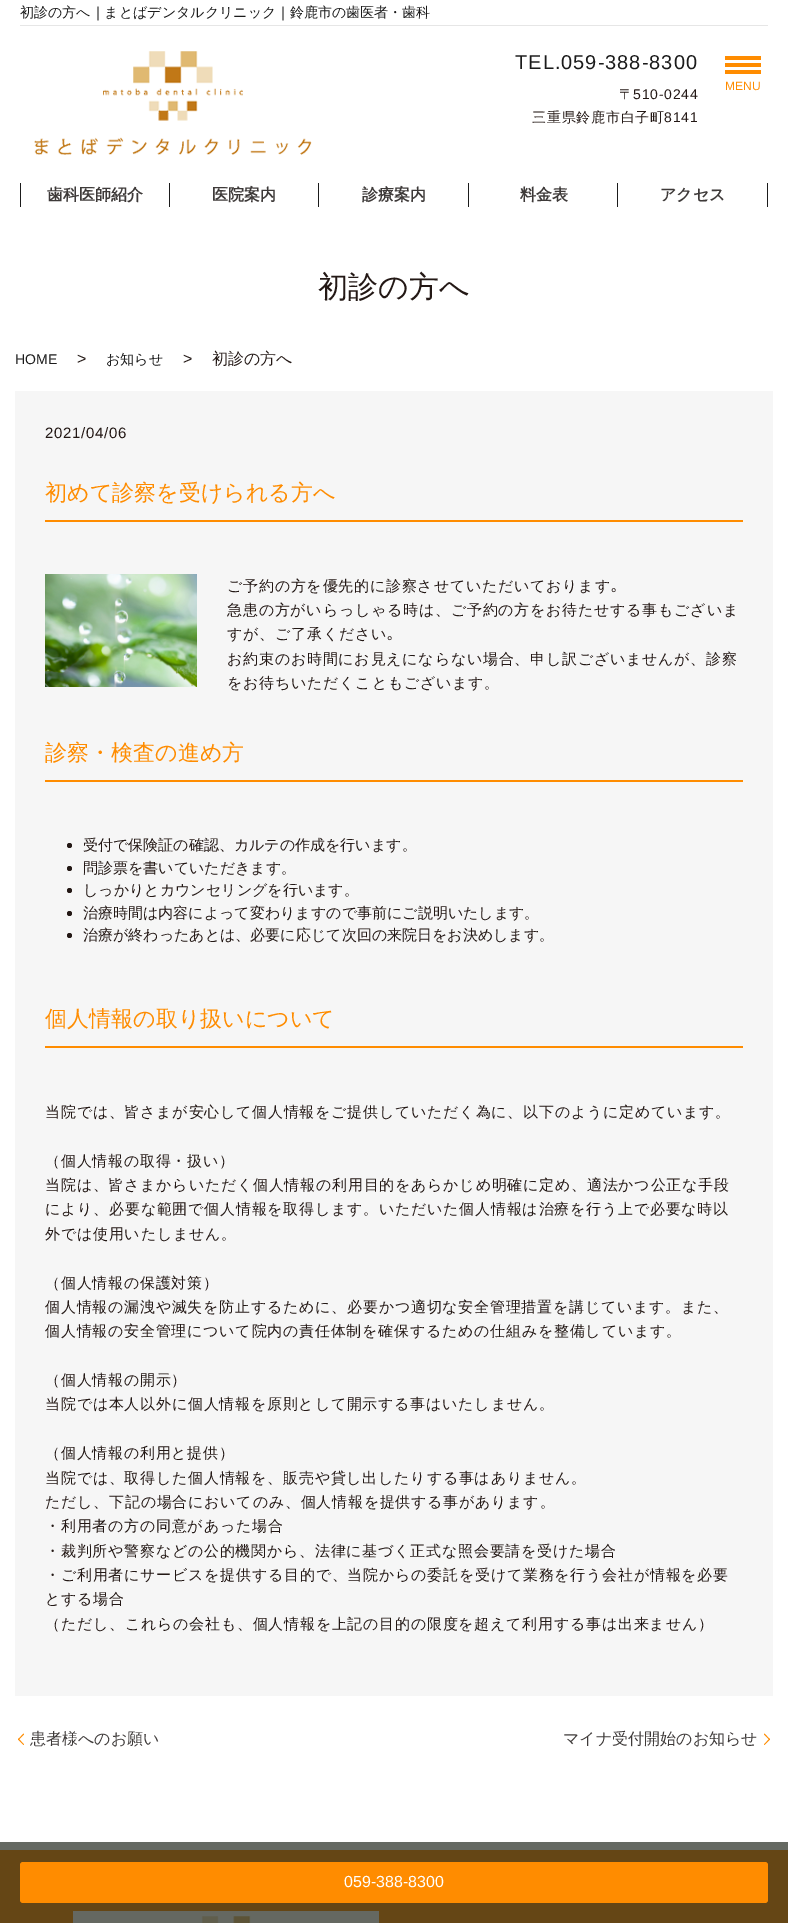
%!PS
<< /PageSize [788 1923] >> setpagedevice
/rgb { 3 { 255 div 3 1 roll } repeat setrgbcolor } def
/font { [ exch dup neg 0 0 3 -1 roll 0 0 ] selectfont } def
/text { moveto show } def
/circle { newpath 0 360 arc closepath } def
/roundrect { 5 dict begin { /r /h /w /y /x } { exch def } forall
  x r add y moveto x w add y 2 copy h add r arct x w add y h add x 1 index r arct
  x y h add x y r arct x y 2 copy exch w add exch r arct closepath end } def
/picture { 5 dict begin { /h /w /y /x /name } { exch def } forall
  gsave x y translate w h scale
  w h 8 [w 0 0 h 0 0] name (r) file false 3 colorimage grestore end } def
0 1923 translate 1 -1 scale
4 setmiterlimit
255 255 255 rgb
0 0 788 1923 rectfill
101 105 98 rgb
0 1842 788 8 rectfill
230 230 230 rgb
20 25 748 1 rectfill
(img_01.rgb) 34 51 278 104 picture
255 140 0 rgb
725 56 36 4 rectfill
725 70 36 4 rectfill
725 63 36 4 rectfill
27 27 27 rgb
20 183 1 24 rectfill
169 183 1 24 rectfill
318 183 1 24 rectfill
468 183 1 24 rectfill
617 183 1 24 rectfill
767 183 1 24 rectfill
246 246 246 rgb
15 391 758 1305 rectfill
255 140 0 rgb
45 520 698 2 rectfill
(img_02.rgb) 45 574 152 113 picture
45 780 698 2 rectfill
35 24 21 rgb
69.5 845.5 2.5 circle fill
69.5 868.5 2.5 circle fill
69.5 890.5 2.5 circle fill
69.5 913.5 2.5 circle fill
69.5 935.5 2.5 circle fill
255 140 0 rgb
45 1046 698 2 rectfill
18 1739.5 moveto 5.5 -6 rlineto 0.5 1 rlineto -5.5 5.5 rlineto closepath fill
23.5 1745 moveto -5.5 -5.5 rlineto 0.5 -1 rlineto 5.5 6 rlineto closepath fill
764.5 1733.5 moveto 5.5 6 rlineto -0.5 0.5 rlineto -5.5 -5.5 rlineto closepath fill
770 1739.5 moveto -5.5 5.5 rlineto -0.5 -0.5 rlineto 5.5 -6 rlineto closepath fill
101 70 21 rgb
0 1850 788 73 rectfill
(img_03.rgb) 73 1911 306 12 picture
255 140 0 rgb
20 1862 748 41 3 roundrect fill
/WenQuanYiZenHei-Medium 14 font
27 27 27 rgb
(初診の方へ｜まとばデンタルクリニック｜鈴鹿市の歯医者・歯科) 20 17 text
/LiberationSans-Regular 20 font
515 69 moveto 1 0 (TEL.059-388-8300) ashow
/WenQuanYiZenHei-Medium 14 font
35 24 21 rgb
619 99 moveto 0.75 0 (〒) ashow
/LiberationSans-Regular 14 font
633 99 moveto 0.75 0 (510-0244) ashow
/WenQuanYiZenHei-Medium 14 font
532 122 moveto 0.75 0 (三重県鈴鹿市白子町) ashow
/LiberationSans-Regular 14 font
664 122 moveto 0.75 0 (8141) ashow
/LiberationSans-Regular 12 font
255 140 0 rgb
(MENU) 725 90 text
/WenQuanYiZenHei-Bold 16 font
62 58 57 rgb
(歯科医師紹介) 47 200 text
(医院案内) 212 200 text
(診療案内) 362 200 text
(料金表) 520 200 text
(アクセス) 660 200 text
/WenQuanYiZenHei-Medium 30 font
35 24 21 rgb
(初診の方へ) 318 297 text
/LiberationSans-Regular 14 font
27 27 27 rgb
(HOME) 15 364 text
/LiberationSans-Regular 16 font
35 24 21 rgb
(>) 77 364 text
/WenQuanYiZenHei-Medium 14 font
27 27 27 rgb
(お知らせ) 106 364 text
/LiberationSans-Regular 16 font
35 24 21 rgb
(>) 183 364 text
/WenQuanYiZenHei-Medium 16 font
(初診の方へ) 212 364 text
/LiberationSans-Regular 15 font
45 438 moveto 0.75 0 (2021/04/06) ashow
/WenQuanYiZenHei-Medium 22 font
255 140 0 rgb
(初めて診察を受けられる方へ) 45 500 text
/WenQuanYiZenHei-Medium 15 font
35 24 21 rgb
227 591 moveto 0.75 0 (ご予約の方を優先的に診察させていただいております) ashow
/IPAPGothic-Regular 15 font
611 591 moveto 0.75 0 (｡) ashow
/WenQuanYiZenHei-Medium 15 font
227 615 moveto 0.75 0 (急患の方がいらっしゃる時は、ご予約の方をお待たせする事もございま) ashow
227 639 moveto 0.75 0 (すが、ご了承ください) ashow
/IPAPGothic-Regular 15 font
387 639 moveto 0.75 0 (｡) ashow
/WenQuanYiZenHei-Medium 15 font
227 664 moveto 0.75 0 (お約束のお時間にお見えにならない場合、申し訳ございませんが、診察) ashow
227 688 moveto 0.75 0 (をお待ちいただくこともございます。) ashow
/WenQuanYiZenHei-Medium 22 font
255 140 0 rgb
(診察・検査の進め方) 45 760 text
/WenQuanYiZenHei-Medium 15 font
35 24 21 rgb
(受付で保険証の確認、カルテの作成を行います。) 83 850 text
(問診票を書いていただきます。) 83 873 text
(しっかりとカウンセリングを行います。) 83 895 text
(治療時間は内容によって変わりますので事前にご説明いたします。) 83 918 text
(治療が終わったあとは、必要に応じて次回の来院日をお決めします。) 83 940 text
/WenQuanYiZenHei-Medium 22 font
255 140 0 rgb
(個人情報の取り扱いについて) 45 1026 text
/WenQuanYiZenHei-Medium 15 font
35 24 21 rgb
45 1117 moveto 0.75 0 (当院では、皆さまが安心して個人情報をご提供していただく為に、以下のように定めています。) ashow
45 1166 moveto 0.75 0 (（個人情報の取得・扱い）) ashow
45 1190 moveto 0.75 0 (当院は、皆さまからいただく個人情報の利用目的をあらかじめ明確に定め、適法かつ公正な手段) ashow
45 1214 moveto 0.75 0 (により、必要な範囲で個人情報を取得します。いただいた個人情報は治療を行う上で必要な時以) ashow
45 1239 moveto 0.75 0 (外では使用いたしません。) ashow
45 1288 moveto 0.75 0 (（個人情報の保護対策）) ashow
45 1312 moveto 0.75 0 (個人情報の漏洩や滅失を防止するために、必要かつ適切な安全管理措置を講じています。また、) ashow
45 1336 moveto 0.75 0 (個人情報の安全管理について院内の責任体制を確保するための仕組みを整備しています。) ashow
45 1385 moveto 0.75 0 (（個人情報の開示）) ashow
45 1409 moveto 0.75 0 (当院では本人以外に個人情報を原則として開示する事はいたしません。) ashow
45 1458 moveto 0.75 0 (（個人情報の利用と提供）) ashow
45 1483 moveto 0.75 0 (当院では、取得した個人情報を、販売や貸し出したりする事はありません。) ashow
45 1507 moveto 0.75 0 (ただし、下記の場合においてのみ、個人情報を提供する事があります。) ashow
45 1531 moveto 0.75 0 (・利用者の方の同意があった場合) ashow
45 1556 moveto 0.75 0 (・裁判所や警察などの公的機関から、法律に基づく正式な照会要請を受けた場合) ashow
45 1580 moveto 0.75 0 (・ご利用者にサービスを提供する目的で、当院からの委託を受けて業務を行う会社が情報を必要) ashow
45 1604 moveto 0.75 0 (とする場合) ashow
45 1629 moveto 0.75 0 (（ただし、これらの会社も、個人情報を上記の目的の限度を超えて利用する事は出来ません）) ashow
/WenQuanYiZenHei-Medium 16 font
62 58 57 rgb
(患者様へのお願い) 30 1744 text
(マイナ受付開始のお知らせ) 563 1744 text
/LiberationSans-Regular 16 font
255 255 255 rgb
(059-388-8300) 344 1887 text
showpage
